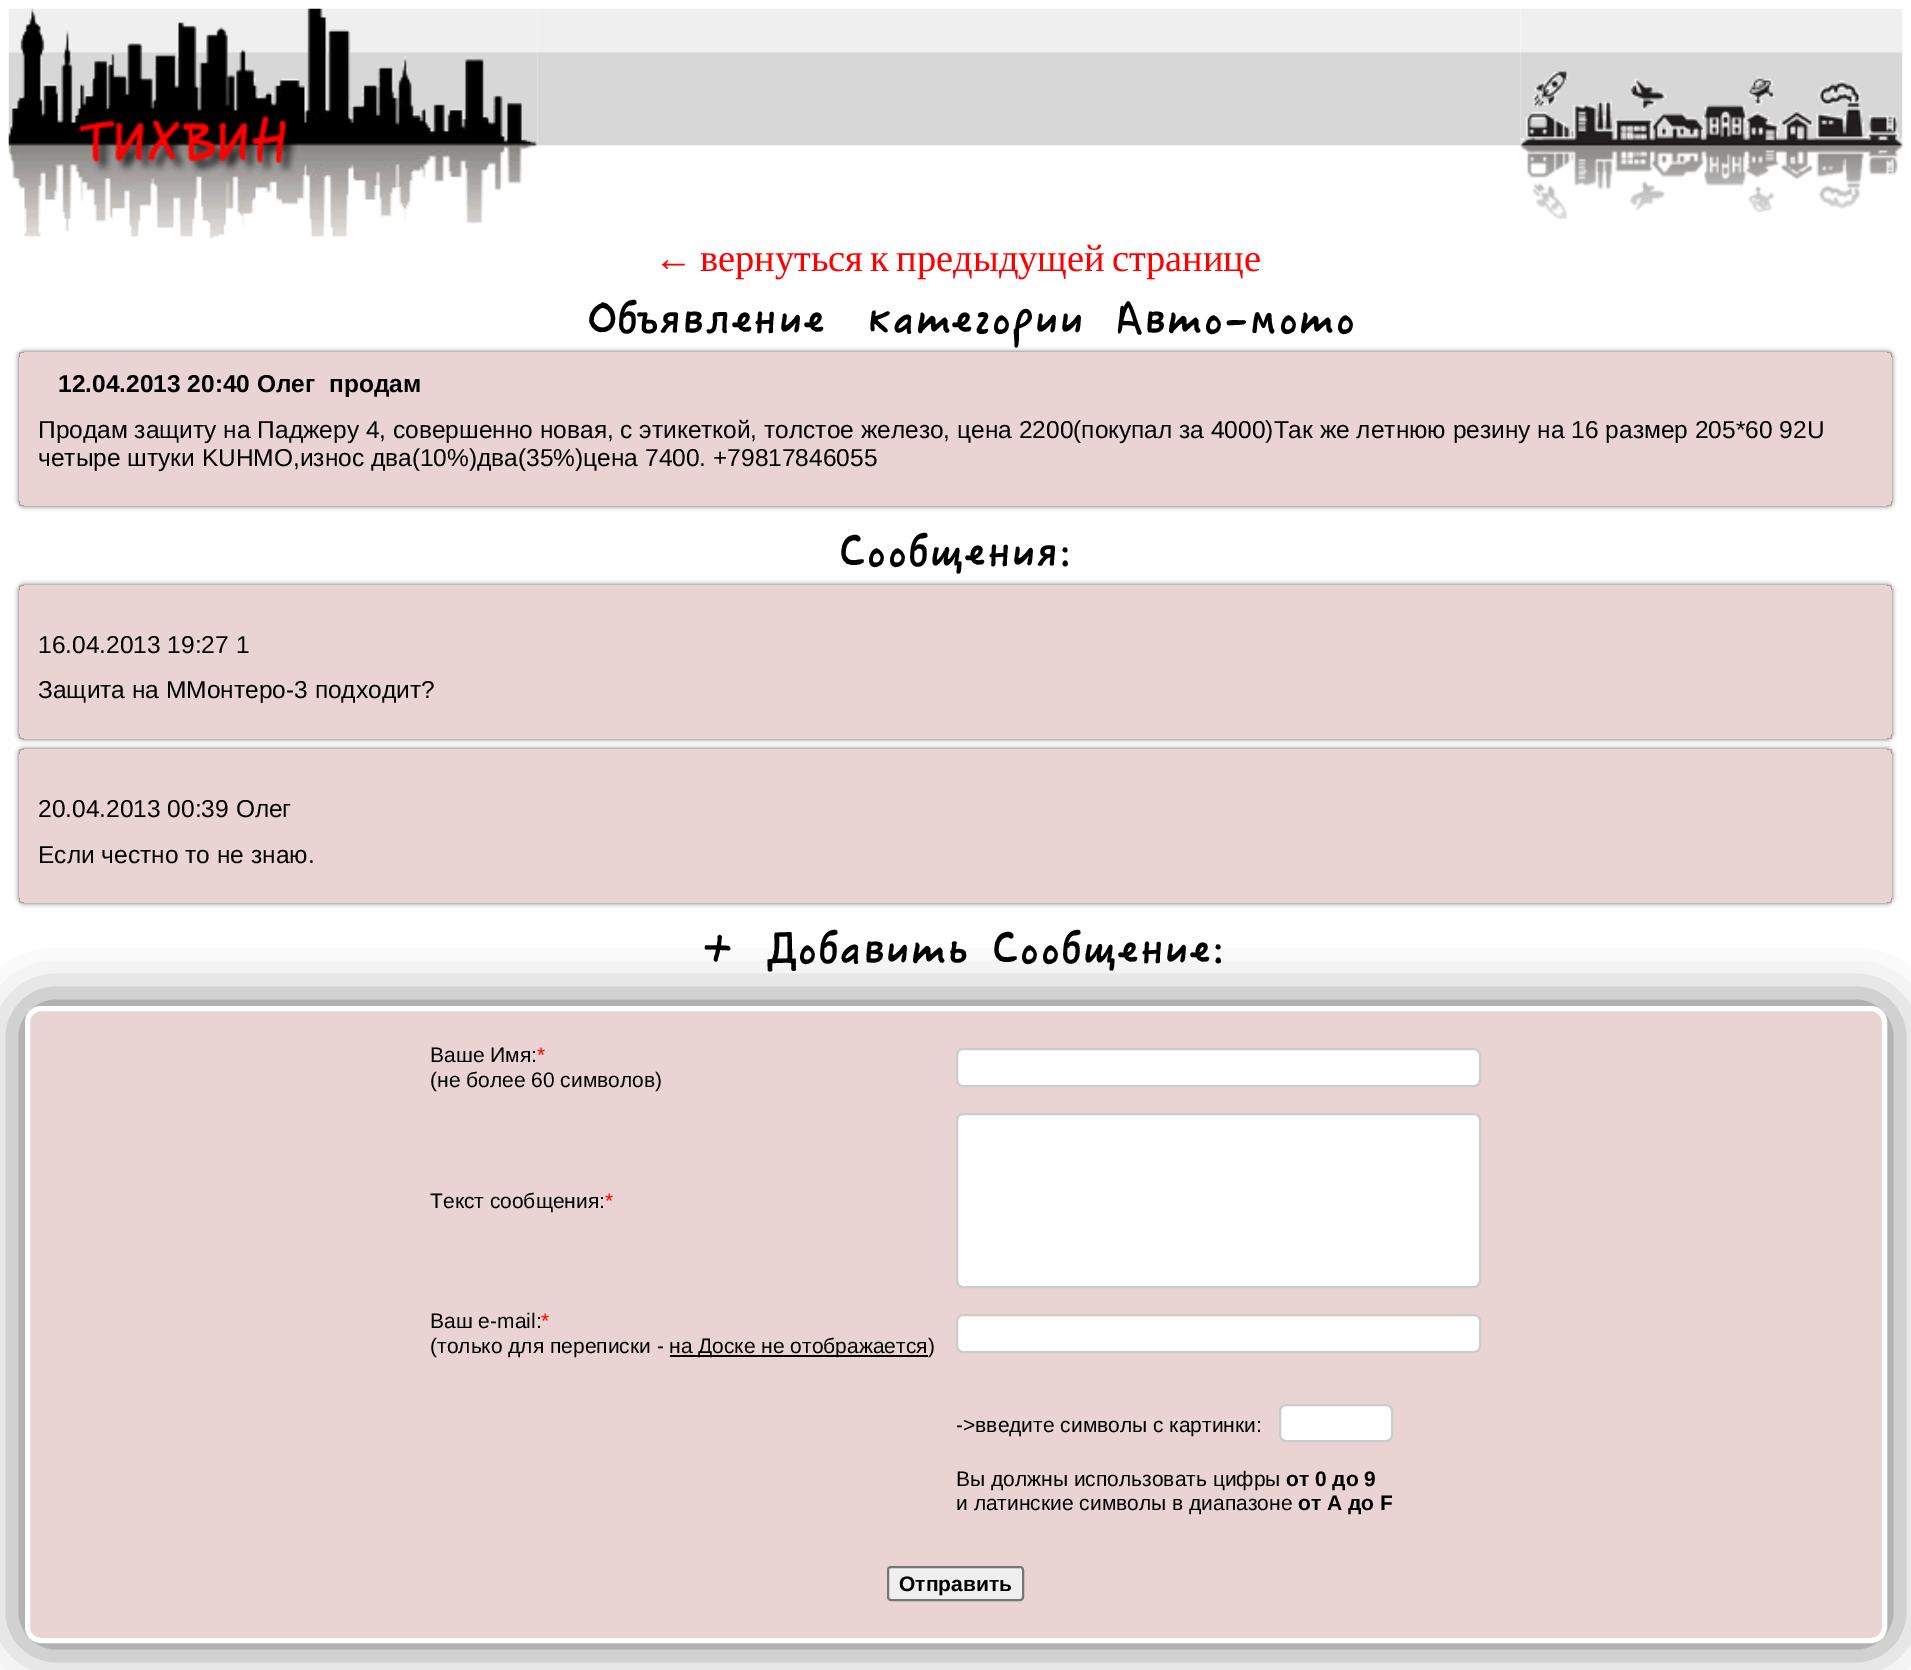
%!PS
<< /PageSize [1911 1670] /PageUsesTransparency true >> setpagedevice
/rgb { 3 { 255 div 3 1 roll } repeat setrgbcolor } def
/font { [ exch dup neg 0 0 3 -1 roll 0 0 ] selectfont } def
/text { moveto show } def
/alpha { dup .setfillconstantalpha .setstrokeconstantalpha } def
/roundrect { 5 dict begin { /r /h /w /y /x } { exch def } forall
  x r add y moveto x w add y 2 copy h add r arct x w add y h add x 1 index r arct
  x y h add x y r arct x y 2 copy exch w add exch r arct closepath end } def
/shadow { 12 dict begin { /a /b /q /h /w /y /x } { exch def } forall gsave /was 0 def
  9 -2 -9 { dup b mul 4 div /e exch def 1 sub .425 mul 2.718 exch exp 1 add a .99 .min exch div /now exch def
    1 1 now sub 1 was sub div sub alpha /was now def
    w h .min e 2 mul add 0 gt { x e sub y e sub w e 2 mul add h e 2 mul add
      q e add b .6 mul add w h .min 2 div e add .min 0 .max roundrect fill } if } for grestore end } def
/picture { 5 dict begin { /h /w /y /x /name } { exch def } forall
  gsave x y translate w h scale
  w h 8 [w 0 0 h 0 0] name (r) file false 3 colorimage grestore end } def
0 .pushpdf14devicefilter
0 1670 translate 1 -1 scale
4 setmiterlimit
255 255 255 rgb
0 0 1911 1670 rectfill
(img_01.rgb) 8 8 530 138 picture
(img_03.rgb) 537 8 984 138 picture
(img_02.rgb) 8 8 530 231 picture
(img_04.rgb) 1521 8 382 138 picture
(img_05.rgb) 1520 71 383 149 picture
234 211 211 rgb
19 352 1873 154 rectfill
gsave
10 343 moveto 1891 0 rlineto 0 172 rlineto -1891 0 rlineto closepath 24 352 moveto 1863 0 rlineto 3 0 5 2 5 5 rcurveto 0 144 rlineto 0 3 -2 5 -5 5 rcurveto -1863 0 rlineto -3 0 -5 -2 -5 -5 rcurveto 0 -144 rlineto 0 -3 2 -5 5 -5 rcurveto closepath eoclip newpath
50 50 50 rgb
19 352 1873 154 5 2.5 0.75 shadow
grestore
19 585 1873 154 rectfill
gsave
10 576 moveto 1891 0 rlineto 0 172 rlineto -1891 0 rlineto closepath 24 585 moveto 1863 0 rlineto 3 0 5 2 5 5 rcurveto 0 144 rlineto 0 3 -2 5 -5 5 rcurveto -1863 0 rlineto -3 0 -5 -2 -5 -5 rcurveto 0 -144 rlineto 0 -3 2 -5 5 -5 rcurveto closepath eoclip newpath
50 50 50 rgb
19 585 1873 154 5 2.5 0.75 shadow
grestore
19 749 1873 154 rectfill
gsave
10 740 moveto 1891 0 rlineto 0 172 rlineto -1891 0 rlineto closepath 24 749 moveto 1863 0 rlineto 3 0 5 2 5 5 rcurveto 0 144 rlineto 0 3 -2 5 -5 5 rcurveto -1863 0 rlineto -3 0 -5 -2 -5 -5 rcurveto 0 -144 rlineto 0 -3 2 -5 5 -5 rcurveto closepath eoclip newpath
50 50 50 rgb
19 749 1873 154 5 2.5 0.75 shadow
grestore
50 50 50 rgb
25 1006 1862 637 16 26 0.75 shadow
234 211 211 rgb
27.5 1008.5 1857 632 13.5 roundrect gsave fill grestore
255 255 255 rgb
5 setlinewidth
stroke
957 1049 523 37 6 roundrect gsave fill grestore
204 204 204 rgb
2 setlinewidth
stroke
255 255 255 rgb
957 1114 523 173 6 roundrect gsave fill grestore
204 204 204 rgb
stroke
0 0 0 rgb
670 1355 258 2 rectfill
255 255 255 rgb
957 1315 523 37 6 roundrect gsave fill grestore
204 204 204 rgb
stroke
255 255 255 rgb
1280 1405 112 36 6 roundrect gsave fill grestore
204 204 204 rgb
stroke
239 239 239 rgb
888 1567 135 33 3 roundrect gsave fill grestore
118 118 118 rgb
stroke
/LiberationSerif-Regular 38.5 font
255 0 0 rgb
654 271 moveto -2.5 0 32 (← вернуться к предыдущей странице) widthshow
/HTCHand-Regular 52.5 font
0 0 0 rgb
587 331 moveto 22 0 32 (Объявление категории) widthshow
1115 331 moveto 22 0 32 (Авто-мото) widthshow
/LiberationSans-Bold 24.5 font
(12.04.2013 20:40 Олег  продам) 58 392 text
/LiberationSans-Regular 24.5 font
(Продам защиту на Паджеру 4, совершенно новая, с этикеткой, толстое железо, цена 2200\(покупал за 4000\)Так же летнюю резину на 16 размер 205*60 92U) 38 438 text
(четыре штуки KUHMO,износ два\(10%\)два\(35%\)цена 7400. +79817846055) 38 466 text
/HTCHand-Regular 52.5 font
(Сообщения:) 839 564 text
/LiberationSans-Regular 24.5 font
(16.04.2013 19:27 1) 38 653 text
(Защита на ММонтеро-3 подходит?) 38 698 text
(20.04.2013 00:39 Олег) 38 817 text
(Если честно то не знаю.) 38 863 text
/HTCHand-Regular 52.5 font
702 961 moveto 12 0 32 (+ Добавить) widthshow
992 961 moveto 12 0 32 (Сообщение:) widthshow
/LiberationSans-Regular 21 font
(Ваше Имя:) 430 1062 text
255 0 0 rgb
(*) 537 1062 text
0 0 0 rgb
(\(не более 60 символов\)) 430 1087 text
(Текст сообщения:) 430 1208 text
255 0 0 rgb
(*) 605 1208 text
0 0 0 rgb
(Ваш e-mail:) 430 1328 text
255 0 0 rgb
(*) 541 1328 text
0 0 0 rgb
(\(только для переписки -) 430 1353 text
(на Доске не отображается\)) 669 1353 text
(->введите символы с картинки:) 956 1432 text
(Вы должны использовать цифры) 956 1486 text
/LiberationSans-Bold 21 font
(от 0 до 9) 1286 1486 text
/LiberationSans-Regular 21 font
(и латинские символы в диапазоне) 956 1510 text
/LiberationSans-Bold 21 font
(от A до F) 1298 1510 text
(Отправить) 899 1591 text
.poppdf14devicefilter showpage
